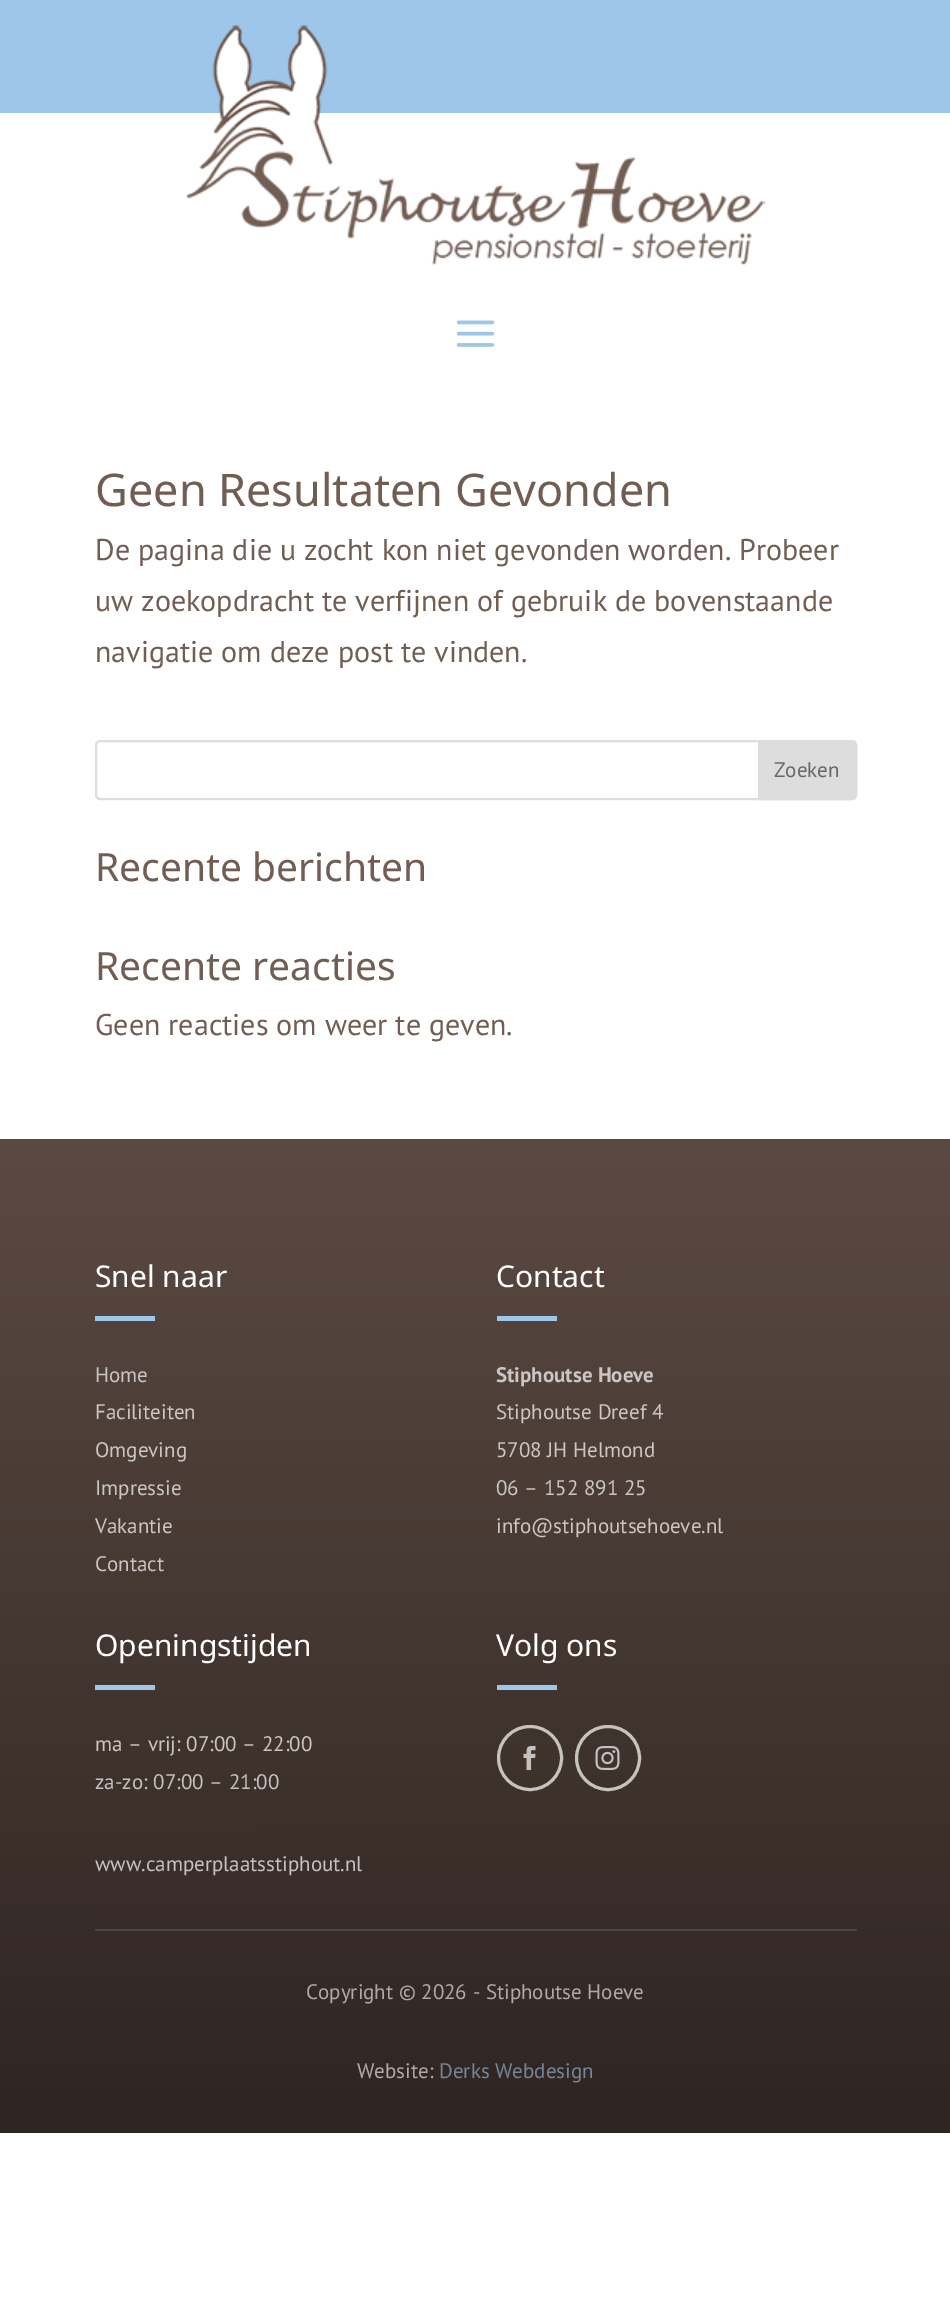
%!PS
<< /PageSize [950 2313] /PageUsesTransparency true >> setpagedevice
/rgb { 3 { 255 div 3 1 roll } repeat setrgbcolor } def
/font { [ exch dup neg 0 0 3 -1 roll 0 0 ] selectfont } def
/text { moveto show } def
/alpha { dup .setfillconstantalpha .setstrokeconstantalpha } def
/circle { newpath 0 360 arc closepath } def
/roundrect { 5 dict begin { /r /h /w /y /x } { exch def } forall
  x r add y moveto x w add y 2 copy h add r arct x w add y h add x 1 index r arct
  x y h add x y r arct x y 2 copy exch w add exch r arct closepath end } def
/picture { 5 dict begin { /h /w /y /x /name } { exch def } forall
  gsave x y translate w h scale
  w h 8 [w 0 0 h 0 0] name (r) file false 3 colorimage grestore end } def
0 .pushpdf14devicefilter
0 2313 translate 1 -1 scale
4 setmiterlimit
255 255 255 rgb
0 0 950 2313 rectfill
157 198 234 rgb
0 0 950 113 rectfill
(img_01.rgb) 186 25 580 240 picture
(img_02.rgb) 456 320 39 27 picture
221 221 221 rgb
2 setlinewidth
96 741 760 58 4 roundrect stroke
759 741 moveto 93 0 rlineto 2 0 4 2 4 4 rcurveto 0 50 rlineto 0 2 -2 4 -4 4 rcurveto -93 0 rlineto closepath gsave fill grestore
stroke
gsave 0 1139 moveto 950 0 rlineto 0 994 rlineto -950 0 rlineto closepath clip newpath
<< /ShadingType 2 /ColorSpace /DeviceRGB /Coords [475 1139 476 2133] /Extend [true true] /Function << /FunctionType 2 /Domain [0 1] /C0 [0.357 0.29 0.259] /C1 [0.18 0.145 0.129] /N 1 >> >> shfill grestore
157 198 234 rgb
95 1316 60 5 rectfill
497 1316 60 5 rectfill
95 1685 60 5 rectfill
497 1685 60 5 rectfill
0.7 alpha
255 255 255 rgb
3 setlinewidth
530 1758 31.5 circle stroke
1 alpha
(img_03.rgb) 523 1746 13 24 picture
0.7 alpha
608 1758 31.5 circle stroke
1 alpha
(img_04.rgb) 595 1746 25 24 picture
79 70 66 rgb
95 1929 762 2 rectfill
/NotoSansSoyombo-Regular 45 font
114 93 83 rgb
(Geen Resultaten Gevonden) 95 506 text
/PTSans-Regular 30 font
(De pagina die u zocht kon niet gevonden worden. Probeer) 95 560 text
(uw zoekopdracht te verfijnen of gebruik de bovenstaande) 95 611 text
(navigatie om deze post te vinden.) 95 662 text
/PTSans-Regular 21 font
102 102 102 rgb
(Zoeken) 774 777 text
/NotoSansSoyombo-Regular 39 font
114 93 83 rgb
(Recente berichten) 95 881 text
(Recente reacties) 95 980 text
/PTSans-Regular 30 font
(Geen reacties om weer te geven.) 95 1035 text
/NotoSansSoyombo-Regular 30 font
255 255 255 rgb
(Snel naar) 95 1287 text
/PTSans-Regular 21 font
203 198 196 rgb
(Home) 95 1382 text
(Faciliteiten) 95 1419 text
(Omgeving) 95 1457 text
(Impressie) 95 1495 text
(Vakantie) 95 1533 text
(Contact) 95 1571 text
/NotoSansSoyombo-Regular 30 font
255 255 255 rgb
(Contact) 496 1287 text
/PTSans-Bold 21 font
203 198 196 rgb
(Stiphoutse Hoeve) 496 1382 text
/PTSans-Regular 21 font
(Stiphoutse Dreef 4) 496 1419 text
(5708 JH Helmond) 496 1457 text
(06 – 152 891 25) 496 1495 text
(info@stiphoutsehoeve.nl) 496 1533 text
/NotoSansSoyombo-Regular 30 font
255 255 255 rgb
(Openingstijden) 95 1656 text
/PTSans-Regular 21 font
203 198 196 rgb
(ma – vrij: 07:00 – 22:00) 95 1751 text
197 194 192 rgb
(za-zo: 07:00 – 21:00) 95 1789 text
(www.camperplaatsstiphout.nl) 95 1871 text
/NotoSansSoyombo-Regular 30 font
255 255 255 rgb
(Volg ons) 496 1656 text
/PTSans-Regular 21 font
174 170 168 rgb
(Copyright © 2026 - Stiphoutse Hoeve) 306 1999 text
(Website:) 357 2078 text
114 134 154 rgb
(Derks Webdesign) 439 2078 text
.poppdf14devicefilter showpage
